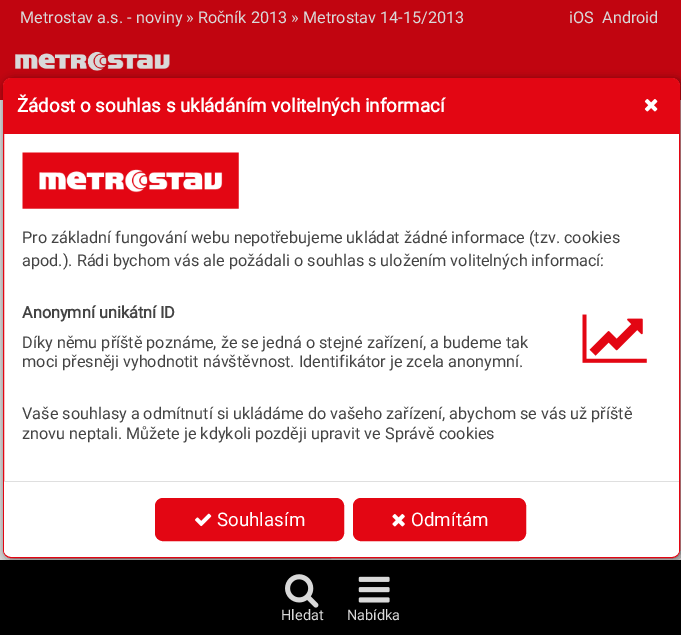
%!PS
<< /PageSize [681 635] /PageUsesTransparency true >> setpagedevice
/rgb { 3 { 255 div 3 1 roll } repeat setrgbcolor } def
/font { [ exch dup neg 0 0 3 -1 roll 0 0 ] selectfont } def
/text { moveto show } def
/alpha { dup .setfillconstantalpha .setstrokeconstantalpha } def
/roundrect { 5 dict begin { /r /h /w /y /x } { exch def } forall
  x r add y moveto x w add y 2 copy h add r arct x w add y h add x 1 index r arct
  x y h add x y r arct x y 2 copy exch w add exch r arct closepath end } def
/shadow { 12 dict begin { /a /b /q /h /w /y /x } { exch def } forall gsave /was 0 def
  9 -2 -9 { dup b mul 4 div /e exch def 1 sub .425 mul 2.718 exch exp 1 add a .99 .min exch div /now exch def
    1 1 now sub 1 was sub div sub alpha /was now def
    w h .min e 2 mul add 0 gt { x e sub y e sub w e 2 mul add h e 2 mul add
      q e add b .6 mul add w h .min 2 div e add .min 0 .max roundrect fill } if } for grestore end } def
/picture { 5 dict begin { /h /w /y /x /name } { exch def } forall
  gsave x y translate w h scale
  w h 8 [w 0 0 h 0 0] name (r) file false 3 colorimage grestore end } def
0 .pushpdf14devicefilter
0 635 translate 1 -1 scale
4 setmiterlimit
217 217 217 rgb
0 0 681 635 rectfill
193 5 16 rgb
0 0 681 100 rectfill
(img_01.rgb) 15 51 155 20 picture
190 190 190 rgb
20.5 120.5 310 438 rectstroke
0 0 0 rgb
0 560 681 75 rectfill
(img_02.rgb) 285 574 34 34 picture
(img_03.rgb) 358 576 32 27 picture
5 80 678 480 8 4.5 0.53 shadow
255 255 255 rgb
3.5 78.5 676 479 7.5 roundrect gsave fill grestore
227 6 19 rgb
stroke
10 79 moveto 663 0 rlineto 3.5 0 6 2.5 6 6 rcurveto 0 49 rlineto -675 0 rlineto 0 -49 rlineto 0 -3.5 2.5 -6 6 -6 rcurveto closepath fill
(img_04.rgb) 644 99 14 13 picture
(img_05.rgb) 22 152 217 57 picture
(img_06.rgb) 582 314 65 49 picture
255 255 255 rgb
4 481 moveto 675 0 rlineto 0 69 rlineto 0 3.5 -2.5 6 -6 6 rcurveto -663 0 rlineto -3.5 0 -6 -2.5 -6 -6 rcurveto closepath fill
223 223 223 rgb
4 481 675 1 rectfill
227 6 19 rgb
155.5 498.5 188 42 7.5 roundrect gsave fill grestore
stroke
(img_07.rgb) 195 513 17 14 picture
353.5 498.5 172 42 7.5 roundrect gsave fill grestore
stroke
(img_08.rgb) 392 514 13 13 picture
/Roboto-Regular 16.25 font
217 217 217 rgb
(Metrostav a.s. - noviny) 20 23 text
(» Ročník 2013 » Metrostav 14-15/2013) 186 23 text
(iOS) 569 23 text
(Android) 602 23 text
/Roboto-Regular 14.5 font
(Hledat) 281 620 text
(Nabídka) 347 620 text
/Roboto-Bold 18.75 font
255 255 255 rgb
(Žádost o souhlas s ukládáním volitelných informací) 17 112 text
/Roboto-Regular 16.25 font
68 68 68 rgb
(Pro základní fungování webu nepotřebujeme ukládat žádné informace \(tzv. cookies) 22 243 text
(apod.\). Rádi bychom vás ale požádali o souhlas s uložením volitelných informací:) 22 266 text
/Roboto-Bold 16.25 font
(Anonymní unikátní ID) 22 318 text
/Roboto-Regular 16.25 font
(Díky němu příště poznáme, že se jedná o stejné zařízení, a budeme tak) 22 348 text
(moci přesněji vyhodnotit návštěvnost. Identifikátor je zcela anonymní.) 22 367 text
(Vaše souhlasy a odmítnutí si ukládáme do vašeho zařízení, abychom se vás už příště) 22 419 text
(znovu neptali. Můžete je kdykoli později upravit ve Správě cookies) 22 439 text
/Roboto-Regular 18.75 font
255 255 255 rgb
(Souhlasím) 217 526 text
(Odmítám) 411 526 text
.poppdf14devicefilter showpage
